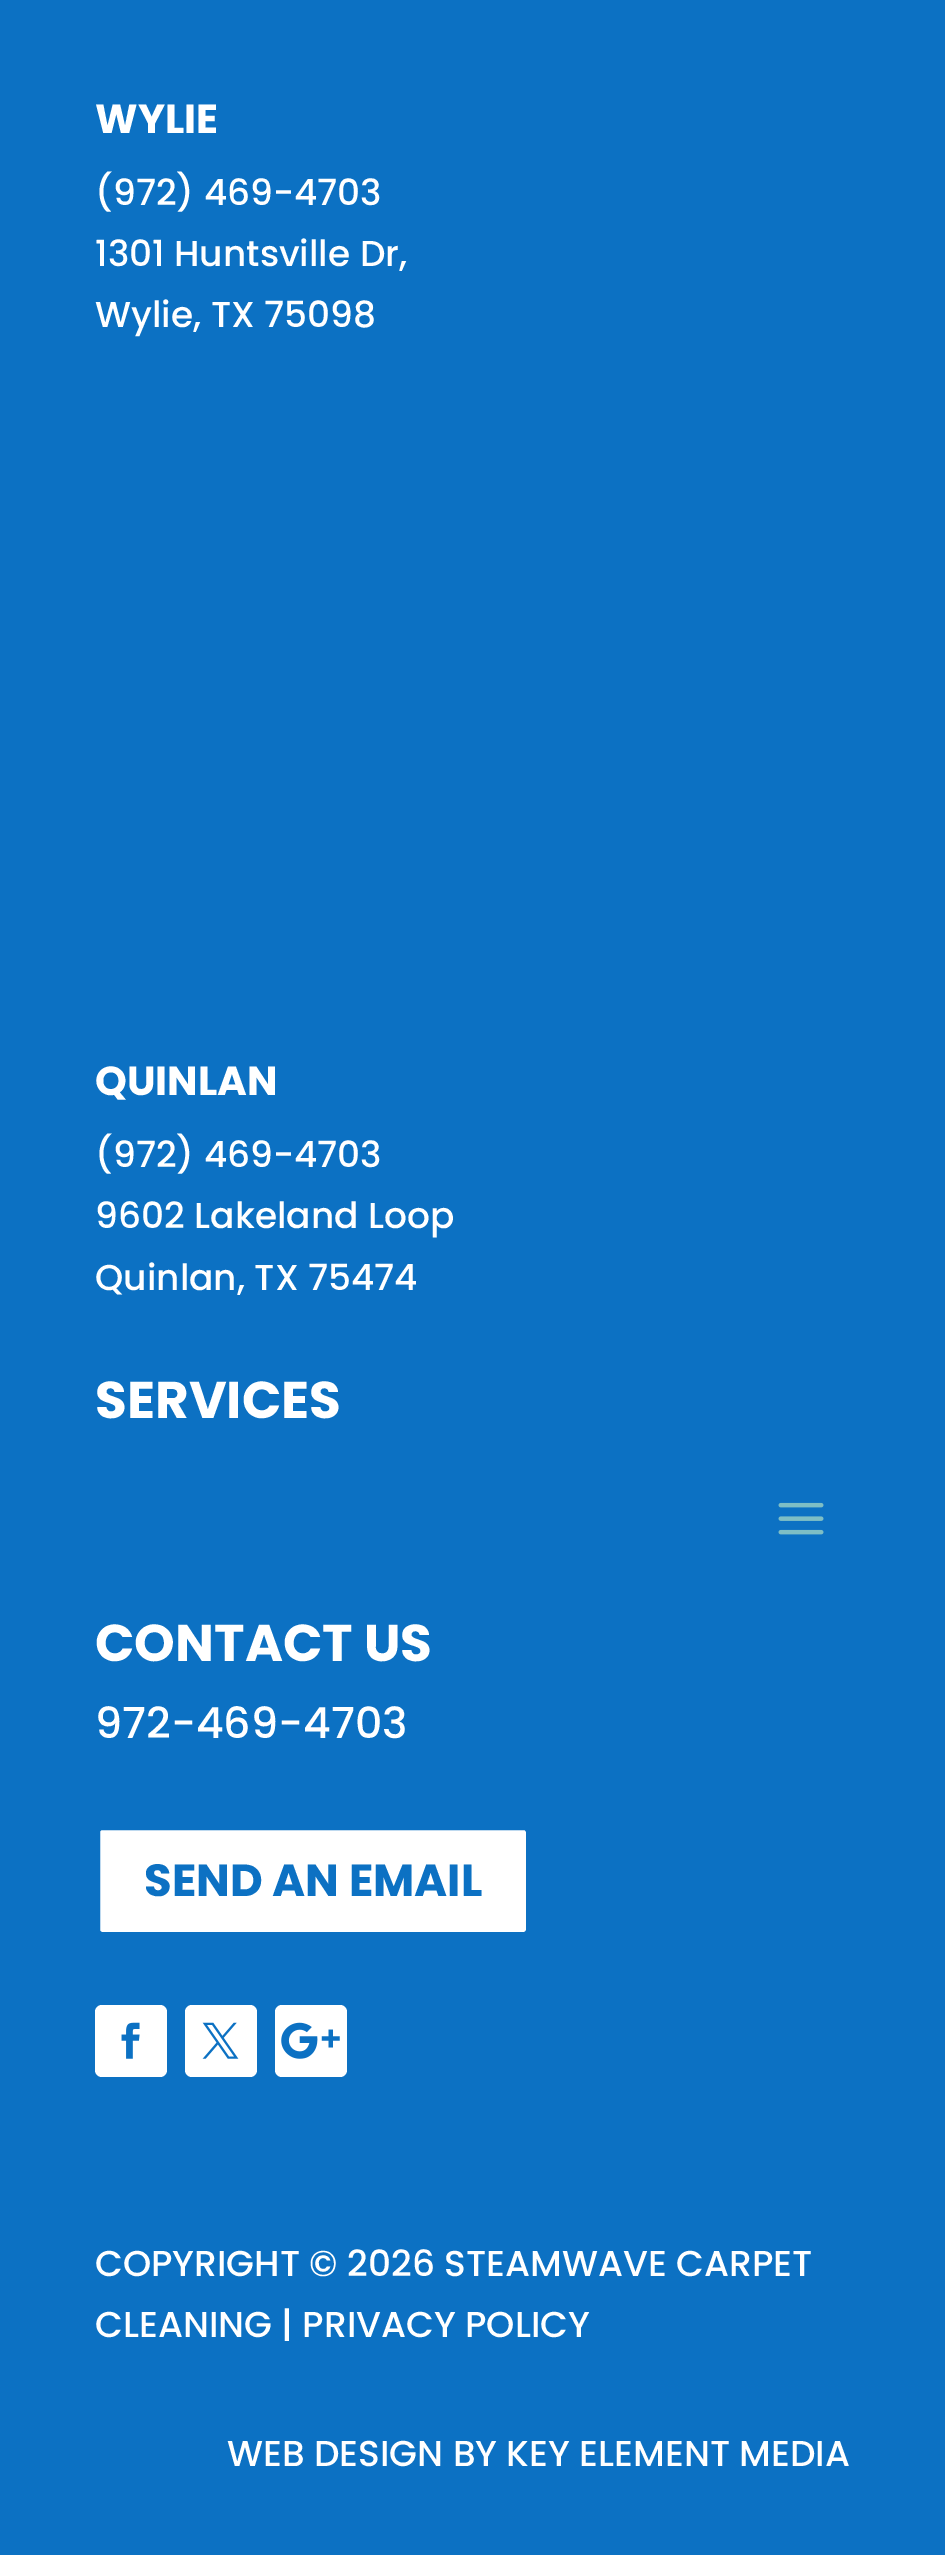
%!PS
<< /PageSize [945 2555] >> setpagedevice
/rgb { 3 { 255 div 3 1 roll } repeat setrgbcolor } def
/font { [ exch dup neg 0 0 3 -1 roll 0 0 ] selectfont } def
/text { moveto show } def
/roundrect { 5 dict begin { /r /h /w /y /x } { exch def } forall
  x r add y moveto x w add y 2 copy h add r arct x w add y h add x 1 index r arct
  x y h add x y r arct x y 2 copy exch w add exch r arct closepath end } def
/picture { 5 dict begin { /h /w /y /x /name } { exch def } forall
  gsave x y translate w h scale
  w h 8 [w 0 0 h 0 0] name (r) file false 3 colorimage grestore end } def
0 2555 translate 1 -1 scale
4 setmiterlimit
12 113 195 rgb
0 0 945 2555 rectfill
(img_01.rgb) 778 1502 46 33 picture
255 255 255 rgb
97.5 1827.5 431 107 4.5 roundrect gsave fill grestore
12 113 195 rgb
5 setlinewidth
stroke
255 255 255 rgb
95 2005 72 72 7 roundrect fill
(img_02.rgb) 121 2022 19 37 picture
185 2005 72 72 7 roundrect fill
(img_03.rgb) 202 2022 37 37 picture
275 2005 72 72 7 roundrect fill
(img_04.rgb) 281 2022 59 37 picture
/Poppins-Bold 40.5 font
(WYLIE) 95 133 text
/Poppins-Medium 36 font
(\(972\) 469-4703) 95 205 text
(1301 Huntsville Dr,) 95 266 text
(Wylie, TX 75098) 95 327 text
/Poppins-Bold 40.5 font
(QUINLAN) 95 1095 text
/Poppins-Medium 36 font
(\(972\) 469-4703) 95 1167 text
(9602 Lakeland Loop) 95 1228 text
(Quinlan, TX 75474) 95 1290 text
/Poppins-Bold 51.75 font
(SERVICES) 95 1418 text
(CONTACT US) 95 1661 text
/Poppins-Medium 42.75 font
(972-469-4703) 95 1738 text
/Poppins-Bold 45 font
12 113 195 rgb
(SEND AN EMAIL) 144 1896 text
/Poppins-Medium 36 font
255 255 255 rgb
(COPYRIGHT © 2026 STEAMWAVE CARPET) 95 2276 text
(CLEANING | PRIVACY POLICY) 95 2337 text
(WEB DESIGN BY KEY ELEMENT MEDIA) 227 2466 text
showpage
